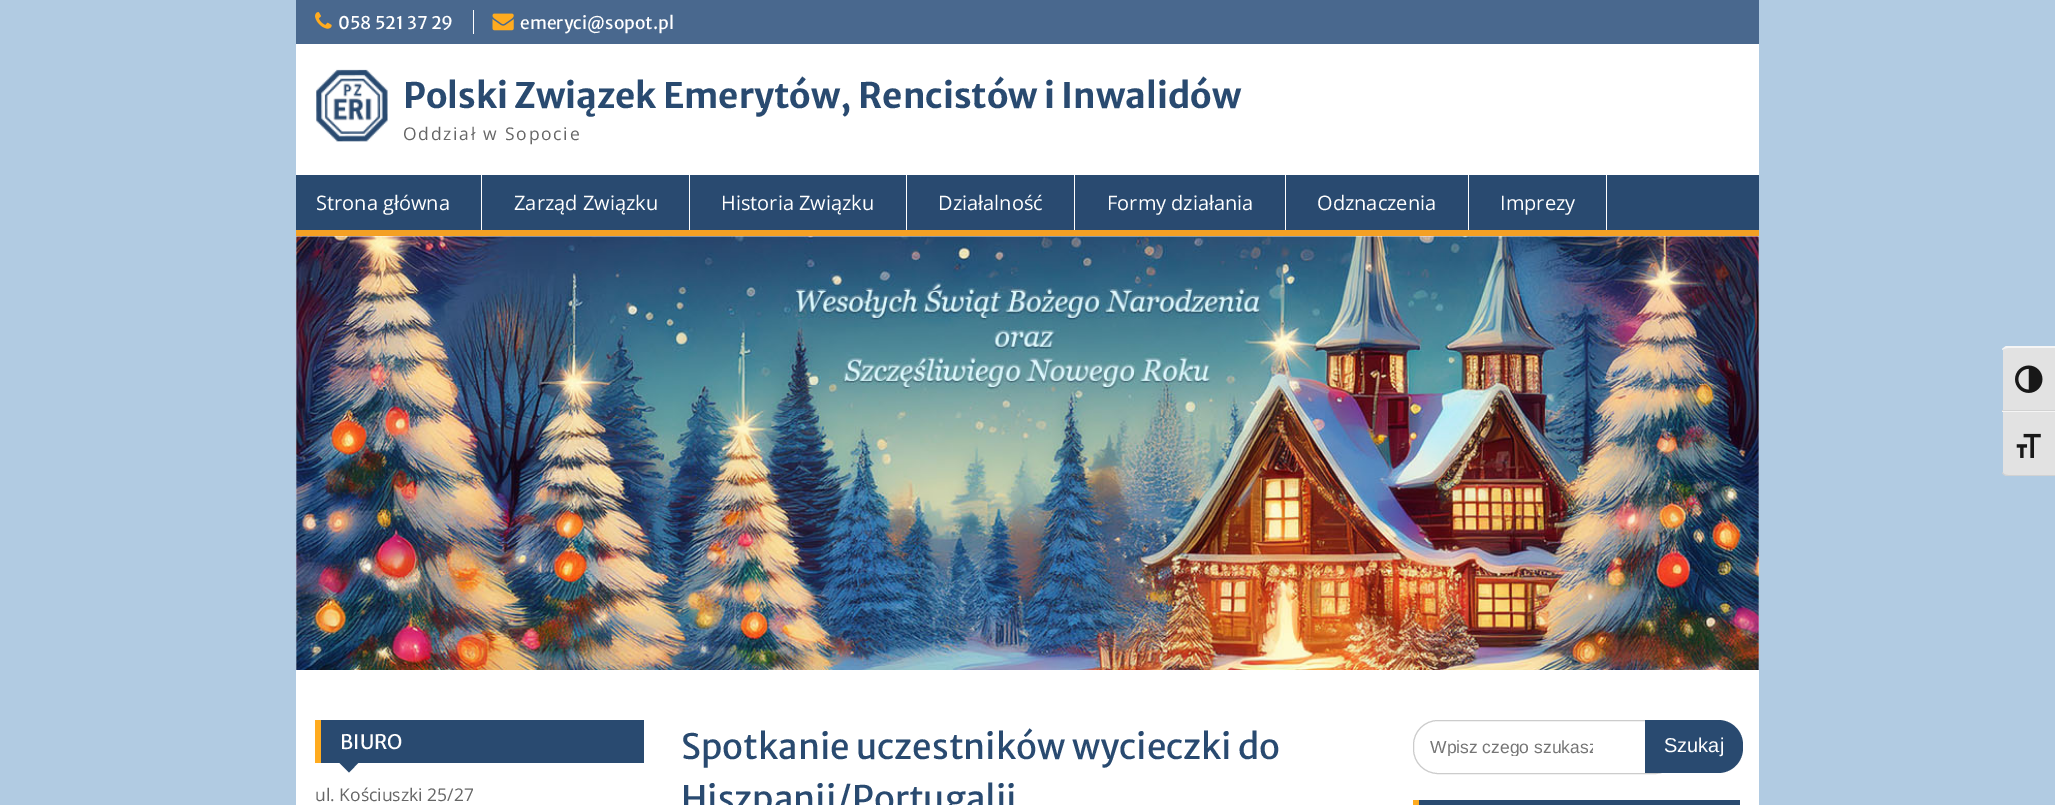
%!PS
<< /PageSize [2055 805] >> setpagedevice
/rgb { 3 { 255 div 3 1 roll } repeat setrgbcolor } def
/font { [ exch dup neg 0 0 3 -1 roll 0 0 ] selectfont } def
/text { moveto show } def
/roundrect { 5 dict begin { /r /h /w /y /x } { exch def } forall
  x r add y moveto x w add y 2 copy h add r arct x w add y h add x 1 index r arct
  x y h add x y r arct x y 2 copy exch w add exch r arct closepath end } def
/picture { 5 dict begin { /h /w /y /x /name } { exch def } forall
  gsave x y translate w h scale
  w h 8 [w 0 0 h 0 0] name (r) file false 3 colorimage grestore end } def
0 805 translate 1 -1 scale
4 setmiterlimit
177 203 226 rgb
0 0 2055 805 rectfill
255 255 255 rgb
296 44 1463 761 rectfill
73 104 142 rgb
296 0 1463 44 rectfill
(img_01.rgb) 315 12 17 17 picture
255 255 255 rgb
473 10 1 24 rectfill
(img_02.rgb) 492 13 22 18 picture
(img_03.rgb) 316 69 72 73 picture
41 74 112 rgb
296 175 1463 55 rectfill
244 160 36 rgb
296 230 1463 6 rectfill
255 255 255 rgb
481 175 1 55 rectfill
689 175 1 55 rectfill
906 175 1 55 rectfill
1074 175 1 55 rectfill
1285 175 1 55 rectfill
1468 175 1 55 rectfill
1606 175 1 55 rectfill
(img_04.rgb) 296 236 1463 434 picture
41 74 112 rgb
321 720 323 43 rectfill
255 171 31 rgb
315 720 6 43 rectfill
41 74 112 rgb
337.5 761 moveto 22.5 0 rlineto -11 11.5 rlineto closepath fill
204 204 204 rgb
1413.5 720.5 266 53 24.5 roundrect stroke
41 74 112 rgb
1645 720 moveto 73 0 rlineto 14 0 25 11 25 25 rcurveto 0 3 rlineto 0 14 -11 25 -25 25 rcurveto -73 0 rlineto closepath fill
1413 800 327 5 rectfill
255 171 31 rgb
1413 800 6 5 rectfill
226 226 226 rgb
2008 346 moveto 47 0 rlineto 0 65 rlineto -52 0 rlineto 0 -60 rlineto 0 -3 2 -5 5 -5 rcurveto closepath fill
245 245 245 rgb
2008 348 moveto -2 0 -5 1 -6 2 rcurveto 0 -1 rlineto 1 -1 3 -2 4 -3 rcurveto 49 0 rlineto 0 2 rlineto closepath fill
210 210 210 rgb
2002 410 53 1 rectfill
(img_05.rgb) 2015 365 28 28 picture
226 226 226 rgb
2003 411 moveto 52 0 rlineto 0 65 rlineto -47 0 rlineto -3 0 -5 -2 -5 -5 rcurveto closepath fill
245 245 245 rgb
2002 411 53 1 rectfill
210 210 210 rgb
2002 473 moveto 0 -1 rlineto 1 2 4 3 6 3 rcurveto 47 0 rlineto 0 1 rlineto -47 0 rlineto -2 0 -5 -1 -6 -3 rcurveto closepath fill
(img_06.rgb) 2016 433 25 25 picture
/MerriweatherSans-Regular 17.5 font
255 255 255 rgb
(058 521 37 29) 338 29 text
(emeryci@sopot.pl) 520 29 text
/MerriweatherSans-Bold 35 font
41 74 112 rgb
(Polski Związek Emerytów, Rencistów i Inwalidów) 403 108 text
/OpenSans-Regular 17.5 font
102 102 102 rgb
403 140 moveto 1.75 0 (Oddział w Sopocie) ashow
/OpenSans-Regular 20 font
255 255 255 rgb
(Strona główna) 316 210 text
(Zarząd Związku) 514 210 text
(Historia Związku) 721 210 text
(Działalność) 938 210 text
(Formy działania) 1107 210 text
(Odznaczenia) 1317 210 text
(Imprezy) 1500 210 text
/MerriweatherSans-Regular 20 font
(BIURO) 340 749 text
/OpenSans-Regular 17.5 font
102 102 102 rgb
(ul. Kościuszki 25/27) 315 801 text
/MerriweatherSans-Regular 35 font
41 74 112 rgb
(Spotkanie uczestników wycieczki do) 681 759 text
(Hiszpanii/Portugalii) 681 811 text
gsave
1430 736 163 20 rectclip
/LiberationSans-Regular 17.5 font
117 117 117 rgb
(Wpisz czego szukasz) 1430 753 text
grestore
/LiberationSans-Regular 20 font
255 255 255 rgb
(Szukaj) 1664 752 text
showpage
